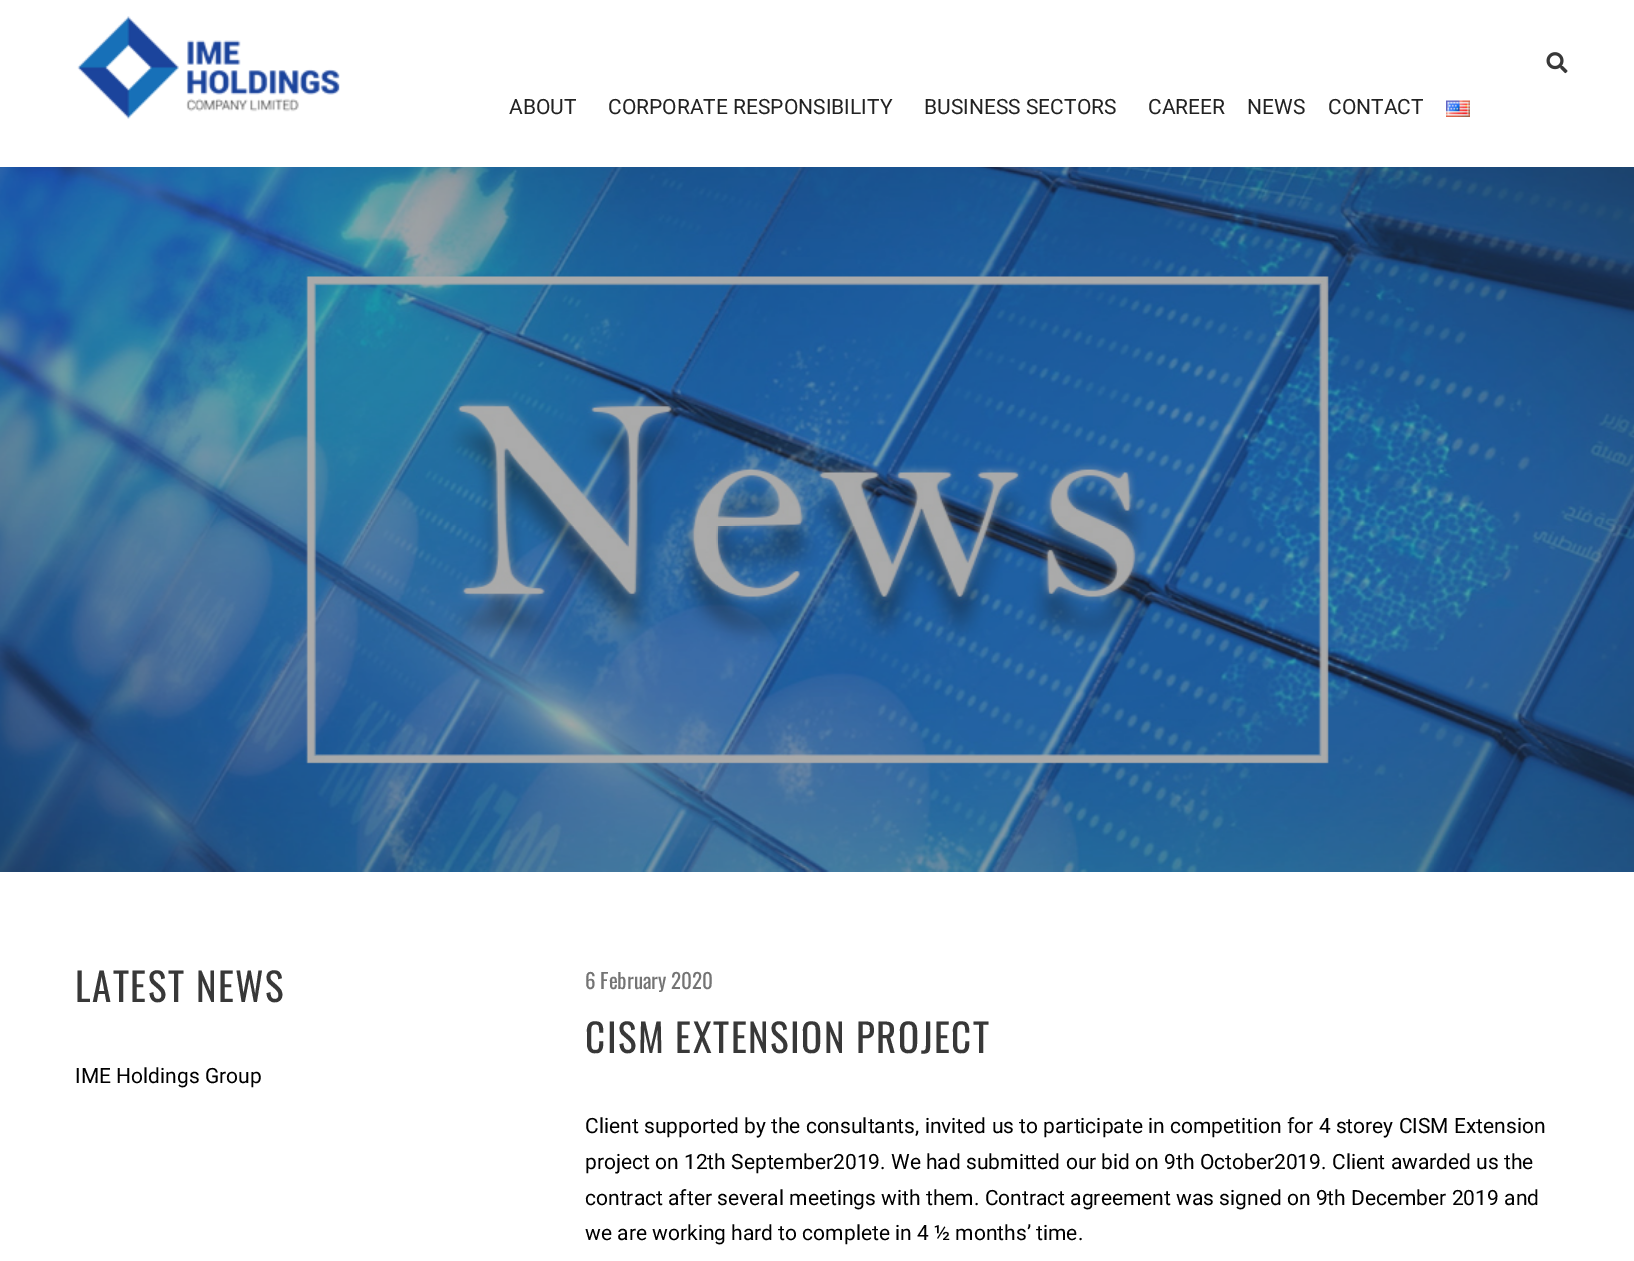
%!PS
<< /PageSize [1634 1261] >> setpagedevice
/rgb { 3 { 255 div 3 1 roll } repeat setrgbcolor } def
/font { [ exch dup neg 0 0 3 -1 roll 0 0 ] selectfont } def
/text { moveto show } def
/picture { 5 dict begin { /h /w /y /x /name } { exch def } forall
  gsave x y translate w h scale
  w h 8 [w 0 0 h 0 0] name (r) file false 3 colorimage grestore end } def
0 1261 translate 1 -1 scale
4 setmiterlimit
255 255 255 rgb
0 0 1634 1261 rectfill
(img_01.rgb) 77 16 263 103 picture
(img_02.rgb) 1546 52 22 22 picture
(img_03.rgb) 1446 100 24 17 picture
(img_04.rgb) 0 167 1634 705 picture
/Roboto-Regular 21 font
34 34 34 rgb
(ABOUT) 509 114 text
(CORPORATE RESPONSIBILITY) 608 114 text
(BUSINESS SECTORS) 924 114 text
(CAREER) 1148 114 text
(NEWS) 1247 114 text
(CONTACT) 1328 114 text
/Oswald-Regular 39 font
56 56 56 rgb
75 1002 moveto 1.5 0 (LATEST NEWS) ashow
/Roboto-Regular 21 font
0 0 0 rgb
(IME Holdings Group) 75 1083 text
/Oswald-Regular 21 font
116 116 116 rgb
(6 February 2020) 585 989 text
/Oswald-Regular 39 font
56 56 56 rgb
585 1053 moveto 1.5 0 (CISM EXTENSION PROJECT) ashow
/Roboto-Regular 21 font
0 0 0 rgb
(Client supported by the consultants, invited us to participate in competition for 4 storey CISM Extension) 585 1133 text
(project on 12th September2019. We had submitted our bid on 9th October2019. Client awarded us the) 585 1169 text
(contract after several meetings with them. Contract agreement was signed on 9th December 2019 and) 585 1205 text
(we are working hard to complete in 4 ½ months’ time.) 585 1240 text
showpage
